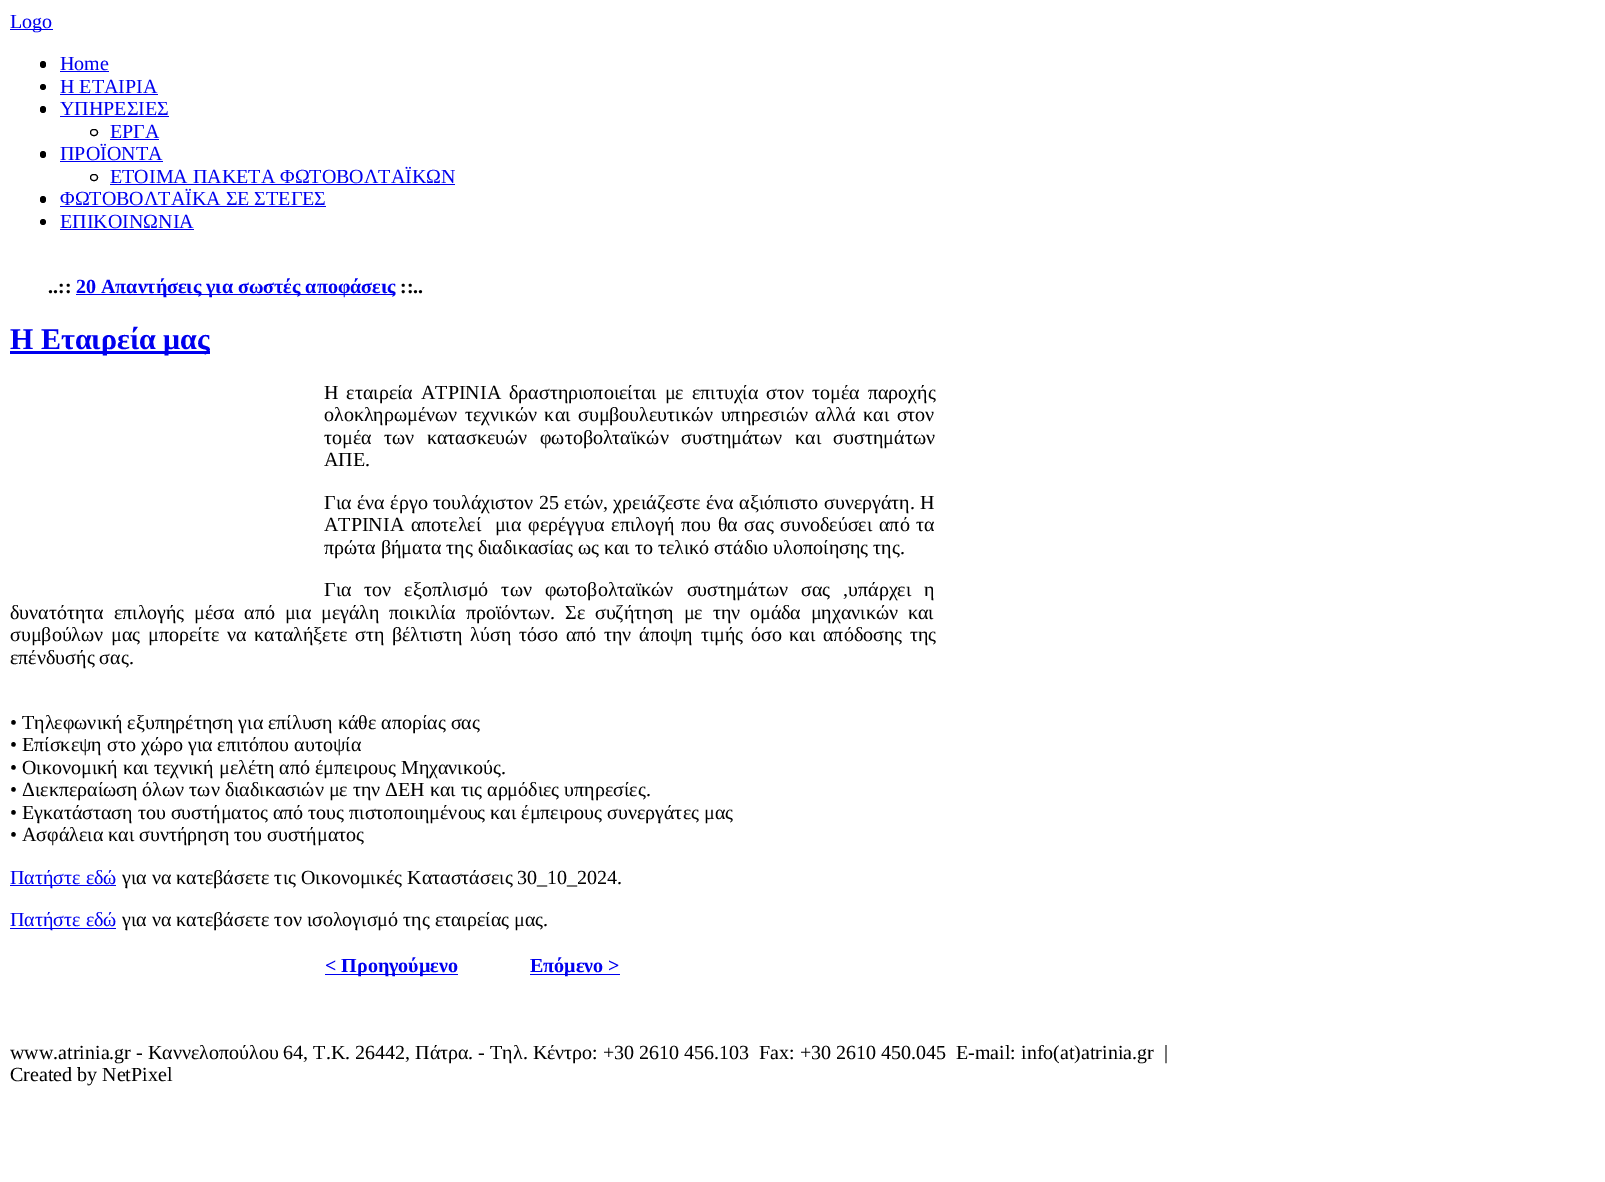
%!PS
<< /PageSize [1605 1182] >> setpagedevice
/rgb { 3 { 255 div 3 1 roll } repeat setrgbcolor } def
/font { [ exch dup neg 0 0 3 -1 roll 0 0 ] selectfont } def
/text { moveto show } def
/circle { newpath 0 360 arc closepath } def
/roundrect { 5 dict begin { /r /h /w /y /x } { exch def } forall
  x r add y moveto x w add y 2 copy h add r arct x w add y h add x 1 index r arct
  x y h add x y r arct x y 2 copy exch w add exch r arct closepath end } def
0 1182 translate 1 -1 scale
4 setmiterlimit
255 255 255 rgb
0 0 1605 1182 rectfill
0 0 238 rgb
10 29 43 1 rectfill
0 0 0 rgb
40 61 6 7 3 roundrect fill
0 0 238 rgb
60 71 49 1 rectfill
0 0 0 rgb
43 87 3 circle fill
0 0 238 rgb
60 94 98 1 rectfill
0 0 0 rgb
40 106 6 7 3 roundrect fill
0 0 238 rgb
60 116 109 1 rectfill
0 0 0 rgb
90.5 129.5 7 6 3 roundrect stroke
0 0 238 rgb
110 139 49 1 rectfill
0 0 0 rgb
40 151 6 7 3 roundrect fill
0 0 238 rgb
60 161 103 1 rectfill
0 0 0 rgb
90.5 174.5 7 6 3 roundrect stroke
0 0 238 rgb
110 184 345 1 rectfill
0 0 0 rgb
40 196 6 7 3 roundrect fill
0 0 238 rgb
60 206 266 1 rectfill
0 0 0 rgb
43 222 3 circle fill
0 0 238 rgb
60 229 134 1 rectfill
76 294 319 1 rectfill
10 351 200 3 rectfill
10 885 106 1 rectfill
10 928 106 1 rectfill
325 974 133 1 rectfill
530 974 90 1 rectfill
/LiberationSerif-Regular 20 font
(Logo) 10 28 text
(Home) 60 70 text
(Η ΕΤΑΙΡΙΑ) 60 93 text
(ΥΠΗΡΕΣΙΕΣ) 60 115 text
(ΕΡΓΑ) 110 138 text
(ΠΡΟΪΟΝΤΑ) 60 160 text
(ΕΤΟΙΜΑ ΠΑΚΕΤΑ ΦΩΤΟΒΟΛΤΑΪΚΩΝ) 110 183 text
(ΦΩΤΟΒΟΛΤΑΪΚΑ ΣΕ ΣΤΕΓΕΣ) 60 205 text
(ΕΠΙΚΟΙΝΩΝΙΑ) 60 228 text
/LiberationSerif-Bold 20 font
0 0 0 rgb
(..::) 48 293 text
0 0 238 rgb
(20 Απαντήσεις για σωστές αποφάσεις) 76 293 text
0 0 0 rgb
(::..) 400 293 text
/LiberationSerif-Bold 30 font
0 0 238 rgb
(Η Εταιρεία μας) 10 349 text
/LiberationSerif-Regular 20 font
0 0 0 rgb
324 399 moveto 3 0 32 (Η εταιρεία ΑΤΡΙΝΙΑ δραστηριοποιείται με επιτυχία στον τομέα παροχής) widthshow
324 421 moveto 2.5 0 32 (ολοκληρωμένων τεχνικών και συμβουλευτικών υπηρεσιών αλλά και στον) widthshow
324 444 moveto 7.5 0 32 (τομέα των κατασκευών φωτοβολταϊκών συστημάτων και συστημάτων) widthshow
(ΑΠΕ.) 324 466 text
324 509 moveto 0.5 0 32 (Για ένα έργο τουλάχιστον 25 ετών, χρειάζεστε ένα αξιόπιστο συνεργάτη. Η) widthshow
324 531 moveto 1.75 0 32 (ΑΤΡΙΝΙΑ αποτελεί  μια φερέγγυα επιλογή που θα σας συνοδεύσει από τα) widthshow
(πρώτα βήματα της διαδικασίας ως και το τελικό στάδιο υλοποίησης της.) 324 554 text
324 596 moveto 8 0 32 (Για τον εξοπλισμό των φωτοβολταϊκών συστημάτων σας ,υπάρχει η) widthshow
10 619 moveto 4.75 0 32 (δυνατότητα επιλογής μέσα από μια μεγάλη ποικιλία προϊόντων. Σε συζήτηση με την ομάδα μηχανικών και) widthshow
10 641 moveto 2.75 0 32 (συμβούλων μας μπορείτε να καταλήξετε στη βέλτιστη λύση τόσο από την άποψη τιμής όσο και απόδοσης της) widthshow
(επένδυσής σας.) 10 664 text
(• Τηλεφωνική εξυπηρέτηση για επίλυση κάθε απορίας σας) 10 729 text
(• Επίσκεψη στο χώρο για επιτόπου αυτοψία) 10 751 text
(• Οικονομική και τεχνική μελέτη από έμπειρους Μηχανικούς.) 10 774 text
(• Διεκπεραίωση όλων των διαδικασιών με την ΔΕΗ και τις αρμόδιες υπηρεσίες.) 10 796 text
(• Εγκατάσταση του συστήματος από τους πιστοποιημένους και έμπειρους συνεργάτες μας) 10 819 text
(• Ασφάλεια και συντήρηση του συστήματος) 10 841 text
0 0 238 rgb
(Πατήστε εδώ) 10 884 text
0 0 0 rgb
(για να κατεβάσετε τις Οικονομικές Καταστάσεις 30_10_2024.) 122 884 text
0 0 238 rgb
(Πατήστε εδώ) 10 926 text
0 0 0 rgb
(για να κατεβάσετε τον ισολογισμό της εταιρείας μας.) 122 926 text
/LiberationSerif-Bold 20 font
0 0 238 rgb
(< Προηγούμενο) 325 972 text
(Επόμενο >) 530 972 text
/LiberationSerif-Regular 20 font
0 0 0 rgb
(www.atrinia.gr - Καννελοπούλου 64, Τ.Κ. 26442, Πάτρα. - Τηλ. Κέντρο: +30 2610 456.103  Fax: +30 2610 450.045  E-mail: info\(at\)atrinia.gr  |) 10 1059 text
(Created by NetPixel) 10 1081 text
showpage
